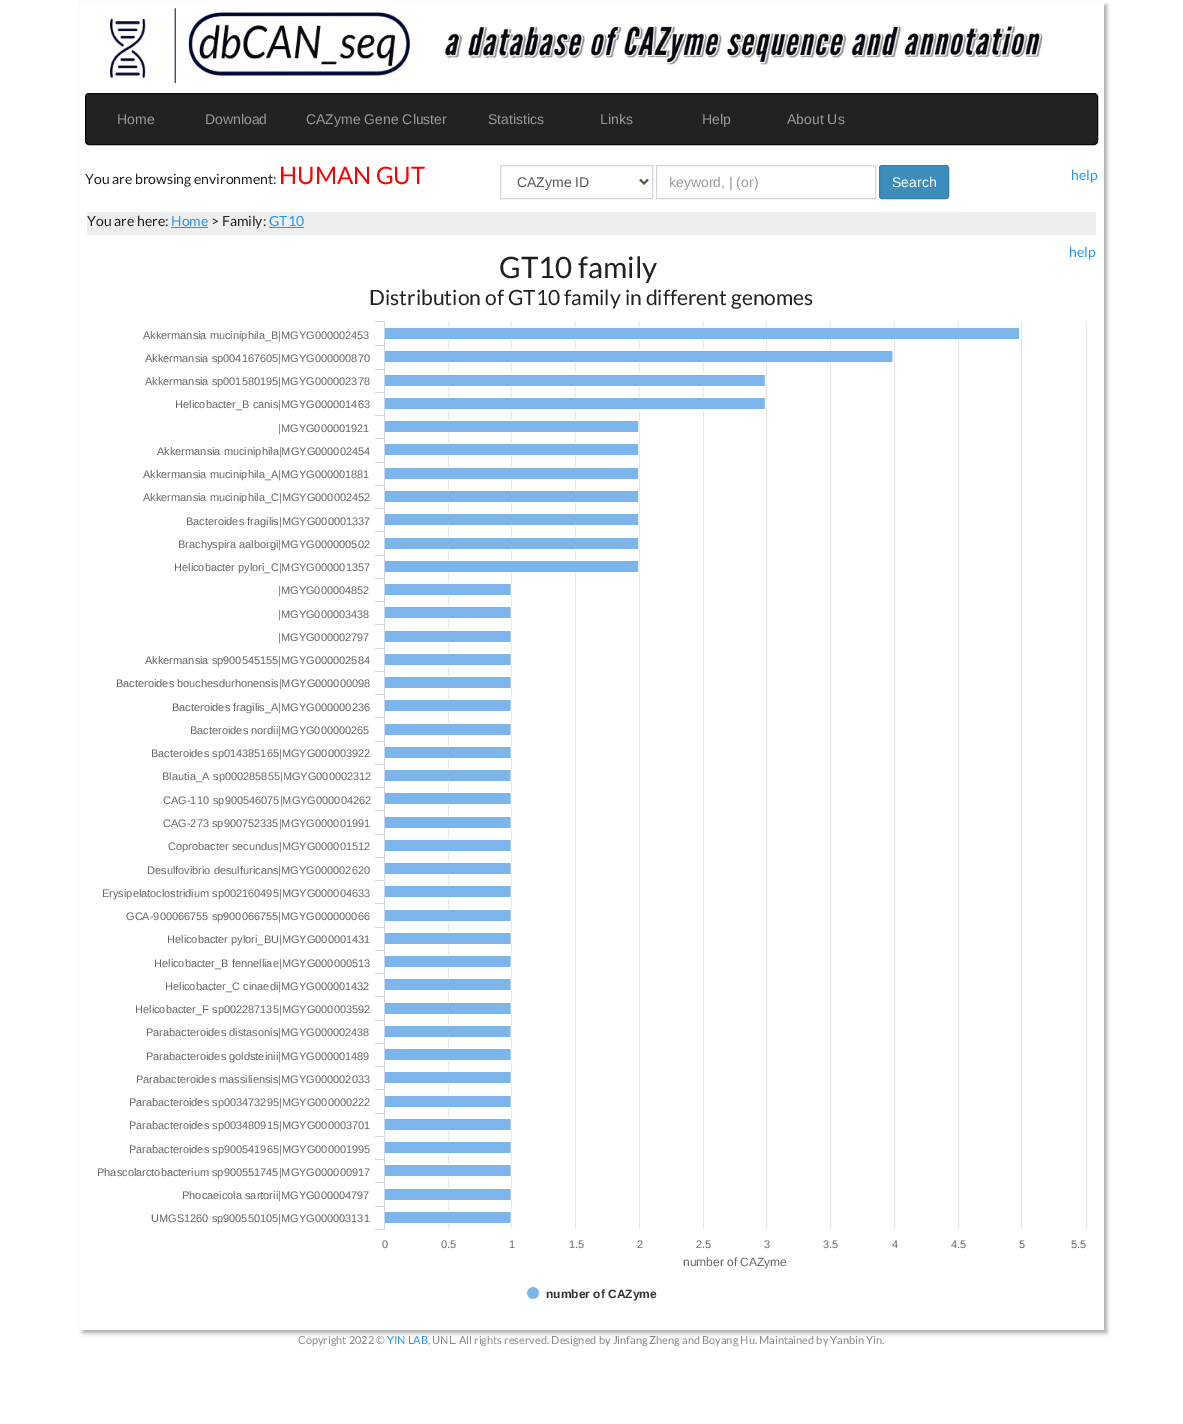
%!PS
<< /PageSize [1183 1424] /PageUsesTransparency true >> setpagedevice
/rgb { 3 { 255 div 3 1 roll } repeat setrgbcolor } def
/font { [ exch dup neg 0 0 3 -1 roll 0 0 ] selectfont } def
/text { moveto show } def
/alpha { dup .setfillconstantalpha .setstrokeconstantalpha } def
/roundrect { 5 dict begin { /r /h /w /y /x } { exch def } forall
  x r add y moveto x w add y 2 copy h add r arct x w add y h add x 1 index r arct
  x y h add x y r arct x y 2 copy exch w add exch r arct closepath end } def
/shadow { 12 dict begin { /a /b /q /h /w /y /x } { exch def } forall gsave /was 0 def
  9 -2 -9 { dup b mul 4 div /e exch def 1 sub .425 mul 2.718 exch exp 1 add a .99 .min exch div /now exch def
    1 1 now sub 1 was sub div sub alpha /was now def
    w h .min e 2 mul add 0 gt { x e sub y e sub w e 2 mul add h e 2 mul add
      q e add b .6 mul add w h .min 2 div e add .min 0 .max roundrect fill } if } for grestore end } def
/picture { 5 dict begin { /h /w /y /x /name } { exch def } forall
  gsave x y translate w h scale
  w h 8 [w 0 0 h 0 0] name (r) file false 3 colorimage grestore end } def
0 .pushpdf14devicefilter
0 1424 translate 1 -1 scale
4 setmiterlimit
255 255 255 rgb
0 0 1183 1424 rectfill
gsave
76 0 moveto 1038 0 rlineto 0 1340 rlineto -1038 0 rlineto closepath 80 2 moveto 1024 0 rlineto 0 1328 rlineto -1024 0 rlineto closepath eoclip newpath
170 170 170 rgb
83 5 1024 1328 0 2 1 shadow
grestore
(img_01.rgb) 110 8 300 75 picture
(img_02.rgb) 445 26 598 39 picture
34 34 34 rgb
85.5 93.5 1012 51 3.5 roundrect gsave fill grestore
8 8 8 rgb
stroke
210 214 222 rgb
500.5 165.5 152 33 rectstroke
85 85 85 rgb
2 setlinewidth
640 179.5 moveto 4 4 rlineto 4 -4 rlineto stroke
210 214 222 rgb
1 setlinewidth
656.5 165.5 219 33 rectstroke
60 141 188 rgb
879.5 165.5 69 33 2.5 roundrect gsave fill grestore
54 127 169 rgb
stroke
238 238 238 rgb
87 212 1009 23 rectfill
33 150 243 rgb
171 227 37 1 rectfill
269 227 35 1 rectfill
(img_03.rgb) 375 321 712 978 picture
/LiberationSans-Regular 14 font
153 153 153 rgb
(Home) 117 124 text
(Download) 205 124 text
(CAZyme Gene Cluster) 306 124 text
(Statistics) 488 124 text
(Links) 600 124 text
(Help) 702 124 text
(About Us) 787 124 text
/Lato-Regular 14 font
33 33 33 rgb
(You are browsing environment:) 85 184 text
/Lato-Regular 24 font
255 0 0 rgb
(HUMAN GUT) 279 184 text
/LiberationSans-Regular 14 font
85 85 85 rgb
(CAZyme ID) 517 187 text
153 153 153 rgb
(keyword, | \(or\)) 669 187 text
255 255 255 rgb
(Search) 892 187 text
/Lato-Regular 14 font
33 150 243 rgb
(help) 1071 180 text
33 33 33 rgb
(You are here:) 87 226 text
33 150 243 rgb
(Home) 171 226 text
33 33 33 rgb
(> Family:) 211 226 text
33 150 243 rgb
(GT10) 269 226 text
(help) 1069 257 text
/Lato-Regular 29.5 font
33 33 33 rgb
(GT10 family) 499 278 text
/Lato-Regular 21 font
(Distribution of GT10 family in different genomes) 369 305 text
/LiberationSans-Regular 11 font
102 102 102 rgb
(Akkermansia muciniphila_B|MGYG000002453) 143 339 text
(Akkermansia sp004167605|MGYG000000870) 145 362 text
(Akkermansia sp001580195|MGYG000002378) 145 385 text
(Helicobacter_B canis|MGYG000001463) 175 408 text
(|MGYG000001921) 278 432 text
(Akkermansia muciniphila|MGYG000002454) 157 455 text
(Akkermansia muciniphila_A|MGYG000001881) 143 478 text
(Akkermansia muciniphila_C|MGYG000002452) 143 501 text
(Bacteroides fragilis|MGYG000001337) 186 525 text
(Brachyspira aalborgi|MGYG000000502) 178 548 text
(Helicobacter pylori_C|MGYG000001357) 174 571 text
(|MGYG000004852) 278 594 text
(|MGYG000003438) 278 618 text
(|MGYG000002797) 278 641 text
(Akkermansia sp900545155|MGYG000002584) 145 664 text
(Bacteroides bouchesdurhonensis|MGYG000000098) 116 687 text
(Bacteroides fragilis_A|MGYG000000236) 172 711 text
(Bacteroides nordii|MGYG000000265) 190 734 text
(Bacteroides sp014385165|MGYG000003922) 151 757 text
162 780 moveto 1 0 32 (Blautia_A sp000285855|MGYG000002312) widthshow
163 804 moveto 1 0 32 (CAG-110 sp900546075|MGYG000004262) widthshow
(CAG-273 sp900752335|MGYG000001991) 163 827 text
(Coprobacter secundus|MGYG000001512) 168 850 text
(Desulfovibrio desulfuricans|MGYG000002620) 147 874 text
(Erysipelatoclostridium sp002160495|MGYG000004633) 102 897 text
(GCA-900066755 sp900066755|MGYG000000066) 126 920 text
(Helicobacter pylori_BU|MGYG000001431) 167 943 text
(Helicobacter_B fennelliae|MGYG000000513) 154 967 text
(Helicobacter_C cinaedi|MGYG000001432) 165 990 text
(Helicobacter_F sp002287135|MGYG000003592) 135 1013 text
(Parabacteroides distasonis|MGYG000002438) 146 1036 text
(Parabacteroides goldsteinii|MGYG000001489) 146 1060 text
(Parabacteroides massiliensis|MGYG000002033) 136 1083 text
(Parabacteroides sp003473295|MGYG000000222) 129 1106 text
(Parabacteroides sp003480915|MGYG000003701) 129 1129 text
(Parabacteroides sp900541965|MGYG000001995) 129 1153 text
(Phascolarctobacterium sp900551745|MGYG000000917) 97 1176 text
(Phocaeicola sartorii|MGYG000004797) 182 1199 text
(UMGS1260 sp900550105|MGYG000003131) 151 1222 text
(0) 382 1248 text
(0.5) 441 1248 text
(1) 509 1248 text
(1.5) 569 1248 text
(2) 637 1248 text
(2.5) 696 1248 text
(3) 764 1248 text
(3.5) 823 1248 text
(4) 892 1248 text
(4.5) 951 1248 text
(5) 1019 1248 text
(5.5) 1071 1248 text
/LiberationSans-Regular 12 font
(number of CAZyme) 683 1266 text
/LiberationSans-Bold 12 font
51 51 51 rgb
(number of CAZyme) 546 1298 text
/Lato-Regular 11 font
136 136 136 rgb
(Copyright 2022 ©) 298 1344 text
33 150 243 rgb
(YIN LAB) 387 1344 text
136 136 136 rgb
(, UNL. All rights reserved. Designed by Jinfang Zheng and Boyang Hu. Maintained by Yanbin Yin.) 428 1344 text
.poppdf14devicefilter showpage
